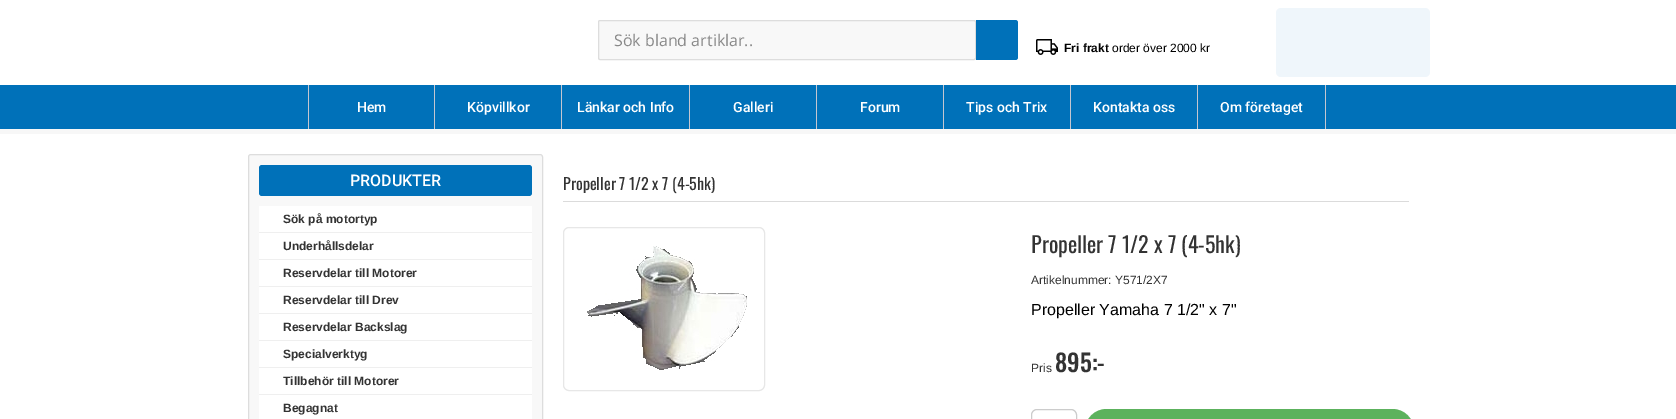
%!PS
<< /PageSize [1676 419] >> setpagedevice
/rgb { 3 { 255 div 3 1 roll } repeat setrgbcolor } def
/font { [ exch dup neg 0 0 3 -1 roll 0 0 ] selectfont } def
/text { moveto show } def
/roundrect { 5 dict begin { /r /h /w /y /x } { exch def } forall
  x r add y moveto x w add y 2 copy h add r arct x w add y h add x 1 index r arct
  x y h add x y r arct x y 2 copy exch w add exch r arct closepath end } def
/picture { 5 dict begin { /h /w /y /x /name } { exch def } forall
  gsave x y translate w h scale
  w h 8 [w 0 0 h 0 0] name (r) file false 3 colorimage grestore end } def
0 419 translate 1 -1 scale
4 setmiterlimit
247 247 247 rgb
0 0 1676 419 rectfill
255 255 255 rgb
0 0 1676 85 rectfill
248 248 248 rgb
598.5 20.5 377 39 1.5 roundrect gsave fill grestore
221 221 221 rgb
stroke
0 113 185 rgb
976 22 moveto 39 0 rlineto 0.5 0 1 0.5 1 1 rcurveto 0 34 rlineto 0 0.5 -0.5 1 -1 1 rcurveto -39 0 rlineto closepath fill
976 20 moveto 39 0 rlineto 2 0 3 1 3 3 rcurveto 0 34 rlineto 0 2 -1 3 -3 3 rcurveto -39 0 rlineto closepath 976 22 moveto 39 0 rlineto 1 0 1 0 1 1 rcurveto 0 34 rlineto 0 1 0 1 -1 1 rcurveto -39 0 rlineto closepath eofill
239 246 251 rgb
1276 8 154 69 5 roundrect fill
(img_01.rgb) 1036 39 22 16 picture
0 113 185 rgb
0 85 1676 44 rectfill
197 198 208 rgb
434 85 1 44 rectfill
308 85 1 44 rectfill
561 85 1 44 rectfill
689 85 1 44 rectfill
816 85 1 44 rectfill
943 85 1 44 rectfill
1070 85 1 44 rectfill
1197 85 1 44 rectfill
1325 85 1 44 rectfill
255 255 255 rgb
0 134 1676 285 rectfill
248 248 248 rgb
248.5 154.5 294 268 2.5 roundrect gsave fill grestore
221 221 221 rgb
stroke
0 113 185 rgb
259 165 273 31 3 roundrect fill
255 255 255 rgb
259 206 273 26 rectfill
239 239 239 rgb
259 232 273 1 rectfill
255 255 255 rgb
259 233 273 26 rectfill
239 239 239 rgb
259 259 273 1 rectfill
255 255 255 rgb
259 260 273 26 rectfill
239 239 239 rgb
259 286 273 1 rectfill
255 255 255 rgb
259 287 273 26 rectfill
239 239 239 rgb
259 313 273 1 rectfill
255 255 255 rgb
259 314 273 26 rectfill
239 239 239 rgb
259 340 273 1 rectfill
255 255 255 rgb
259 341 273 26 rectfill
239 239 239 rgb
259 367 273 1 rectfill
255 255 255 rgb
259 368 273 26 rectfill
239 239 239 rgb
259 394 273 1 rectfill
255 255 255 rgb
259 395 273 24 rectfill
219 219 219 rgb
563 201 846 1 rectfill
231 231 231 rgb
563.5 227.5 201 163 5.5 roundrect stroke
(img_02.rgb) 587 246 160 124 picture
204 204 204 rgb
1031.5 409.5 45 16 5.5 roundrect stroke
92 178 93 rgb
1085 409 329 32 21.5 roundrect fill
/OpenSans-Regular 16 font
136 136 136 rgb
(Sök bland artiklar..) 614 46 text
/LiberationSans-Bold 12 font
0 0 0 rgb
(Fri frakt) 1064 52 text
/LiberationSans-Regular 12 font
(order över 2000 kr) 1112 52 text
/Roboto-Medium 14 font
255 255 255 rgb
(Hem) 357 112 text
(Köpvillkor) 467 112 text
(Länkar och Info) 577 112 text
(Galleri) 733 112 text
(Forum) 860 112 text
(Tips och Trix) 966 112 text
(Kontakta oss) 1093 112 text
(Om företaget) 1220 112 text
/Roboto-Medium 16 font
(PRODUKTER) 350 186 text
/LiberationSans-Bold 12 font
51 51 51 rgb
(Sök på motortyp) 283 223 text
(Underhållsdelar) 283 250 text
(Reservdelar till Motorer) 283 277 text
(Reservdelar till Drev) 283 304 text
(Reservdelar Backslag) 283 331 text
(Specialverktyg) 283 358 text
(Tillbehör till Motorer) 283 385 text
(Begagnat) 283 412 text
/Oswald-Regular 16 font
(Propeller 7 1/2 x 7 \(4-5hk\)) 563 190 text
/Oswald-Regular 22 font
(Propeller 7 1/2 x 7 \(4-5hk\)) 1031 253 text
/LiberationSans-Regular 12 font
(Artikelnummer: Y571/2X7) 1031 284 text
/LiberationSans-Regular 16 font
0 0 0 rgb
(Propeller Yamaha 7 1/2" x 7") 1031 315 text
/LiberationSans-Regular 12 font
51 51 51 rgb
(Pris) 1031 372 text
/Oswald-Medium 24 font
(895:-) 1055 372 text
showpage
